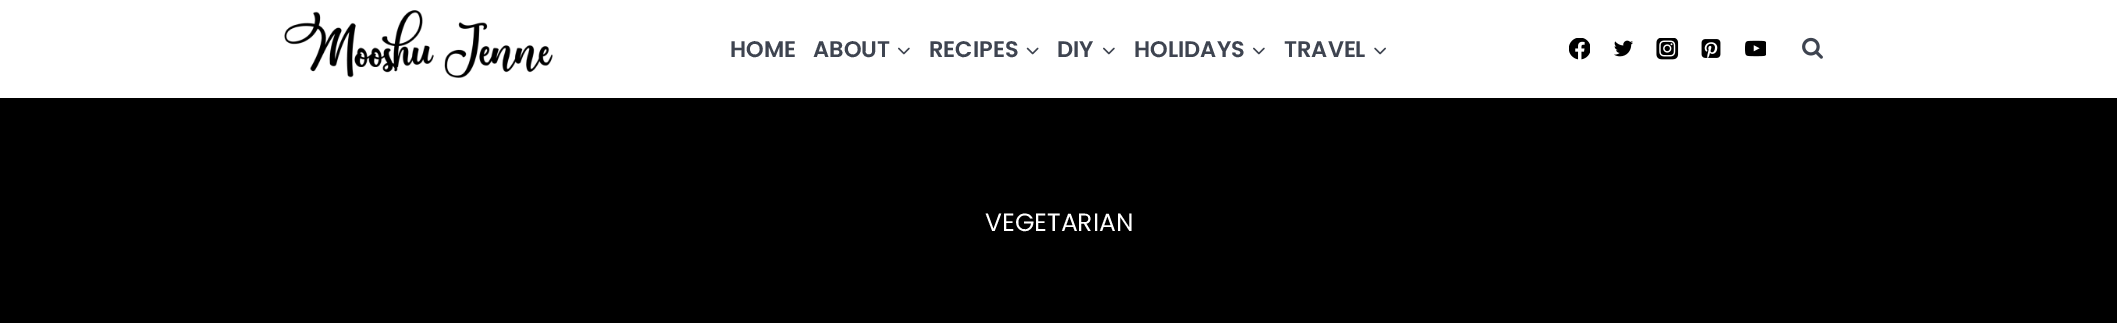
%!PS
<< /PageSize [2117 323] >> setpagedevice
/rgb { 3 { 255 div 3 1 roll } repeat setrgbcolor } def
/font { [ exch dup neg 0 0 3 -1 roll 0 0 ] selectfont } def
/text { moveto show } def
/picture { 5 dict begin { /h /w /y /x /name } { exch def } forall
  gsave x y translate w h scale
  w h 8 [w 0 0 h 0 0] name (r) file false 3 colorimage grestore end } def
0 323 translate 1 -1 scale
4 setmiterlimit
255 255 255 rgb
0 0 2117 323 rectfill
(img_01.rgb) 284 10 269 68 picture
(img_02.rgb) 898 47 12 8 picture
(img_03.rgb) 1026 47 13 8 picture
(img_02.rgb) 1103 47 12 8 picture
(img_02.rgb) 1253 47 12 8 picture
(img_04.rgb) 1374 47 12 8 picture
(img_05.rgb) 1569 38 21 22 picture
(img_06.rgb) 1614 40 19 17 picture
(img_07.rgb) 1656 38 23 22 picture
(img_08.rgb) 1701 39 20 19 picture
(img_09.rgb) 1745 40 21 17 picture
(img_10.rgb) 1802 37 21 22 picture
0 0 0 rgb
0 98 2117 225 rectfill
/Poppins-SemiBold 22.5 font
62 68 80 rgb
(HOME) 730 57 text
(ABOUT) 813 57 text
(RECIPES) 929 57 text
(DIY) 1057 57 text
(HOLIDAYS) 1134 57 text
(TRAVEL) 1284 57 text
/Poppins-Regular 25 font
255 255 255 rgb
(VEGETARIAN) 985 231 text
showpage
